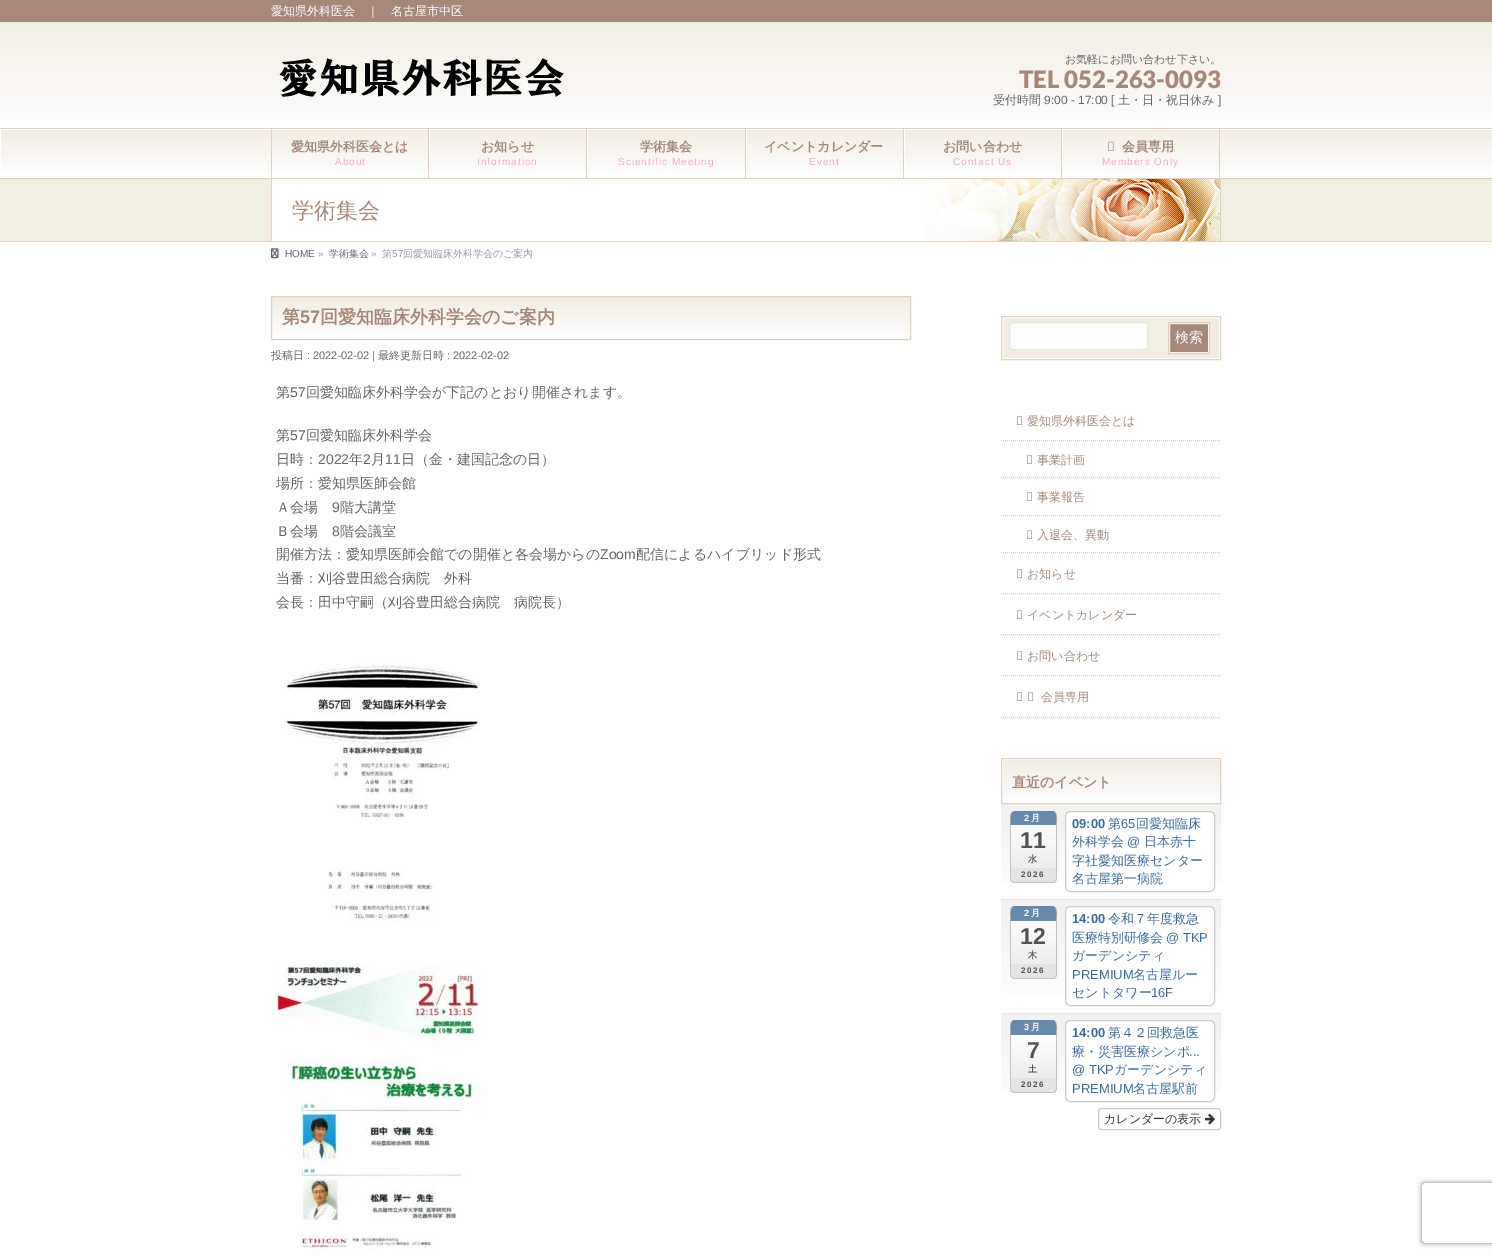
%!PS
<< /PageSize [1492 1257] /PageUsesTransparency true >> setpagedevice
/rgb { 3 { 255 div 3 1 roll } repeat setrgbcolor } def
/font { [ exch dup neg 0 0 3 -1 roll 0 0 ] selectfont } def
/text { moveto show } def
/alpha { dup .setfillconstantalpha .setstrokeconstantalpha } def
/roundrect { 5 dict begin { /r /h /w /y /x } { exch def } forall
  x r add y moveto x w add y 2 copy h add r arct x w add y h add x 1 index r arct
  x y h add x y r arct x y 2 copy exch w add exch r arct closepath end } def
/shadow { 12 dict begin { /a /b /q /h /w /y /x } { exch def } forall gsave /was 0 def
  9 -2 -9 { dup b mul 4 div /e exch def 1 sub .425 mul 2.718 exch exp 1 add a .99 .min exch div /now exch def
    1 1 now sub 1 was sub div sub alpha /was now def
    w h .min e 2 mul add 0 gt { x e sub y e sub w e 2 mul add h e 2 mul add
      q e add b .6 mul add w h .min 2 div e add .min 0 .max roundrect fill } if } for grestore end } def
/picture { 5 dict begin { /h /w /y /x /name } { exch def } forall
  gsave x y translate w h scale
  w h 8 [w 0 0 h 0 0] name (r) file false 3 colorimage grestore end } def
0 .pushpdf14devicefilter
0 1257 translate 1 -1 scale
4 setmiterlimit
255 255 255 rgb
0 0 1492 1257 rectfill
166 136 121 rgb
0 0 1492 22 rectfill
gsave 0 22 moveto 1492 0 rlineto 0 97 rlineto -1492 0 rlineto closepath clip newpath
<< /ShadingType 2 /ColorSpace /DeviceRGB /Coords [746 22 746 128] /Extend [true true] /Function << /FunctionType 2 /Domain [0 1] /C0 [0.949 0.929 0.89] /C1 [1 1 1] /N 1 >> >> shfill grestore
(img_01.rgb) 279 58 285 39 picture
gsave 1 130 moveto 1491 0 rlineto 0 44 rlineto -1491 0 rlineto closepath clip newpath
<< /ShadingType 2 /ColorSpace /DeviceRGB /Coords [746 129 746 178] /Extend [true true] /Function << /FunctionType 2 /Domain [0 1] /C0 [0.949 0.929 0.89] /C1 [1 1 1] /N 1 >> >> shfill grestore
227 209 190 rgb
0 128 1492 1 rectfill
0 178 1492 1 rectfill
gsave
271 129 158 49 rectclip
255 255 255 rgb
172 30 moveto 356 0 rlineto 0 247 rlineto -356 0 rlineto closepath 272 130 moveto 158 0 rlineto 0 49 rlineto -158 0 rlineto closepath eofill
grestore
428 129 1 49 rectfill
271 129 1 49 rectfill
gsave
429 129 158 49 rectclip
255 255 255 rgb
330 30 moveto 356 0 rlineto 0 247 rlineto -356 0 rlineto closepath 430 130 moveto 158 0 rlineto 0 49 rlineto -158 0 rlineto closepath eofill
grestore
586 129 1 49 rectfill
gsave
587 129 159 49 rectclip
255 255 255 rgb
488 30 moveto 357 0 rlineto 0 247 rlineto -357 0 rlineto closepath 588 130 moveto 159 0 rlineto 0 49 rlineto -159 0 rlineto closepath eofill
grestore
745 129 1 49 rectfill
gsave
746 129 158 49 rectclip
255 255 255 rgb
647 30 moveto 356 0 rlineto 0 247 rlineto -356 0 rlineto closepath 747 130 moveto 158 0 rlineto 0 49 rlineto -158 0 rlineto closepath eofill
grestore
903 129 1 49 rectfill
gsave
904 129 158 49 rectclip
255 255 255 rgb
805 30 moveto 356 0 rlineto 0 247 rlineto -356 0 rlineto closepath 905 130 moveto 158 0 rlineto 0 49 rlineto -158 0 rlineto closepath eofill
grestore
1061 129 1 49 rectfill
gsave
1062 129 158 49 rectclip
255 255 255 rgb
963 30 moveto 356 0 rlineto 0 247 rlineto -356 0 rlineto closepath 1063 130 moveto 158 0 rlineto 0 49 rlineto -158 0 rlineto closepath eofill
grestore
1219 129 1 49 rectfill
(img_02.rgb) 1108 141 6 10 picture
242 237 227 rgb
0 179 1492 62 rectfill
227 209 190 rgb
0 241 1492 1 rectfill
255 255 255 rgb
272 179 651 62 rectfill
(img_03.rgb) 923 179 297 62 picture
227 209 190 rgb
1220 179 1 62 rectfill
271 179 1 62 rectfill
(img_04.rgb) 271 248 8 11 picture
gsave 272 297 moveto 638 0 rlineto 0 38 rlineto -638 0 rlineto closepath clip newpath
<< /ShadingType 2 /ColorSpace /DeviceRGB /Coords [591 297 591 339] /Extend [true true] /Function << /FunctionType 2 /Domain [0 1] /C0 [0.949 0.929 0.89] /C1 [1 1 1] /N 1 >> >> shfill grestore
271.5 296.5 639 43 rectstroke
(img_05.rgb) 284 663 196 260 picture
(img_06.rgb) 276 963 208 288 picture
242 237 227 rgb
1002.5 317.5 moveto 217 0 rlineto 0 41 rlineto -217 0 rlineto closepath gsave fill grestore
254 253 252 rgb
stroke
227 209 190 rgb
1001.5 316.5 219 43 rectstroke
255 255 255 rgb
1009.5 322.5 138 27 3.5 roundrect gsave fill grestore
229 229 229 rgb
stroke
166 136 121 rgb
1169.5 323.5 moveto 39 0 rlineto 0 29 rlineto -39 0 rlineto closepath gsave fill grestore
246 243 242 rgb
stroke
227 209 190 rgb
1168.5 322.5 41 31 rectstroke
204 204 204 rgb
[1 1] 0 setdash
1001 552.5 moveto 220 0 rlineto stroke
(img_07.rgb) 1017 416 5 9 picture
1001 440.5 moveto 220 0 rlineto stroke
(img_08.rgb) 1027 455 5 9 picture
1001 477.5 moveto 220 0 rlineto stroke
(img_08.rgb) 1027 492 5 9 picture
1001 515.5 moveto 220 0 rlineto stroke
(img_08.rgb) 1027 530 5 9 picture
1001 593.5 moveto 220 0 rlineto stroke
(img_07.rgb) 1017 569 5 9 picture
1001 634.5 moveto 220 0 rlineto stroke
(img_07.rgb) 1017 610 5 9 picture
1001 675.5 moveto 220 0 rlineto stroke
(img_07.rgb) 1017 651 5 9 picture
1001 717.5 moveto 220 0 rlineto stroke
(img_07.rgb) 1017 692 5 9 picture
(img_09.rgb) 1028 692 6 9 picture
gsave 1003 760 moveto 217 0 rlineto 0 39 rlineto -217 0 rlineto closepath clip newpath
<< /ShadingType 2 /ColorSpace /DeviceRGB /Coords [1111 759 1111 803] /Extend [true true] /Function << /FunctionType 2 /Domain [0 1] /C0 [0.949 0.929 0.89] /C1 [1 1 1] /N 1 >> >> shfill grestore
227 209 190 rgb
[] 0 setdash
1001.5 758.5 219 45 rectstroke
gsave 1001 805 moveto 220 0 rlineto 0 78 rlineto -220 0 rlineto closepath clip newpath
<< /ShadingType 2 /ColorSpace /DeviceRGB /Coords [1111 805 1111 899] /Extend [true true] /Function << /FunctionType 3 /Domain [0 1] /Functions [<< /FunctionType 2 /Domain [0 1] /C0 [0.949 0.949 0.949] /C1 [0.949 0.949 0.949] /N 1 >> << /FunctionType 2 /Domain [0 1] /C0 [0.949 0.949 0.949] /C1 [1 1 1] /N 1 >>] /Bounds [0.14] /Encode [0 1 0 1] >> >> shfill grestore
229 229 229 rgb
1001 804 220 1 rectfill
gsave
1010 811 47 72 5 roundrect clip newpath
gsave 1011 811 moveto 45 0 rlineto 0 71 rlineto -45 0 rlineto closepath clip newpath
<< /ShadingType 2 /ColorSpace /DeviceRGB /Coords [1034 811 1034 882] /Extend [true true] /Function << /FunctionType 3 /Domain [0 1] /Functions [<< /FunctionType 2 /Domain [0 1] /C0 [1 1 1] /C1 [1 1 1] /N 1 >> << /FunctionType 2 /Domain [0 1] /C0 [1 1 1] /C1 [0.906 0.906 0.906] /N 1 >>] /Bounds [0.16] /Encode [0 1 0 1] >> >> shfill grestore
grestore
194 194 194 rgb
1015 811 moveto 37 0 rlineto 3 0 5 2 5 5 rcurveto 0 62 rlineto 0 3 -2 5 -5 5 rcurveto -37 0 rlineto -3 0 -5 -2 -5 -5 rcurveto 0 -62 rlineto 0 -3 2 -5 5 -5 rcurveto closepath 1015 811 moveto 37 0 rlineto 2 0 4 2 4 5 rcurveto 0 62 rlineto 0 2 -2 4 -4 4 rcurveto -37 0 rlineto -2 0 -4 -2 -4 -4 rcurveto 0 -62 rlineto 0 -3 2 -5 4 -5 rcurveto closepath eofill
102 137 172 rgb
1015 811 moveto -6 0 -4 11 -4 14 rcurveto 45 0 rlineto 0 -3 2 -14 -4 -14 rcurveto closepath fill
228 228 228 rgb
1011 868 moveto 0 10 rlineto 0 2 2 4 4 4 rcurveto 37 0 rlineto 2 0 4 -2 4 -4 rcurveto 0 -10 rlineto closepath fill
255 255 255 rgb
1065.5 811.5 149 80 4.5 roundrect gsave fill grestore
204 204 204 rgb
stroke
gsave 1001 900 moveto 220 0 rlineto 0 94 rlineto -220 0 rlineto closepath clip newpath
<< /ShadingType 2 /ColorSpace /DeviceRGB /Coords [1111 900 1111 1013] /Extend [true true] /Function << /FunctionType 3 /Domain [0 1] /Functions [<< /FunctionType 2 /Domain [0 1] /C0 [0.949 0.949 0.949] /C1 [0.949 0.949 0.949] /N 1 >> << /FunctionType 2 /Domain [0 1] /C0 [0.949 0.949 0.949] /C1 [1 1 1] /N 1 >>] /Bounds [0.12] /Encode [0 1 0 1] >> >> shfill grestore
229 229 229 rgb
1001 899 220 1 rectfill
gsave
1010 906 47 73 5 roundrect clip newpath
gsave 1011 906 moveto 45 0 rlineto 0 72 rlineto -45 0 rlineto closepath clip newpath
<< /ShadingType 2 /ColorSpace /DeviceRGB /Coords [1034 906 1034 978] /Extend [true true] /Function << /FunctionType 3 /Domain [0 1] /Functions [<< /FunctionType 2 /Domain [0 1] /C0 [1 1 1] /C1 [1 1 1] /N 1 >> << /FunctionType 2 /Domain [0 1] /C0 [1 1 1] /C1 [0.906 0.906 0.906] /N 1 >>] /Bounds [0.16] /Encode [0 1 0 1] >> >> shfill grestore
grestore
194 194 194 rgb
1015 906 moveto 37 0 rlineto 3 0 5 2 5 5 rcurveto 0 63 rlineto 0 3 -2 5 -5 5 rcurveto -37 0 rlineto -3 0 -5 -2 -5 -5 rcurveto 0 -63 rlineto 0 -3 2 -5 5 -5 rcurveto closepath 1015 906 moveto 37 0 rlineto 2 0 4 2 4 5 rcurveto 0 63 rlineto 0 2 -2 4 -4 4 rcurveto -37 0 rlineto -2 0 -4 -2 -4 -4 rcurveto 0 -63 rlineto 0 -3 2 -5 4 -5 rcurveto closepath eofill
102 137 172 rgb
1015 906 moveto -6 0 -4 12 -4 15 rcurveto 45 0 rlineto 0 -3 2 -15 -4 -15 rcurveto closepath fill
228 228 228 rgb
1011 964 moveto 0 10 rlineto 0 2 2 4 4 4 rcurveto 37 0 rlineto 2 0 4 -2 4 -4 rcurveto 0 -10 rlineto closepath fill
255 255 255 rgb
1065.5 906.5 149 99 4.5 roundrect gsave fill grestore
204 204 204 rgb
stroke
gsave 1001 1014 moveto 220 0 rlineto 0 78 rlineto -220 0 rlineto closepath clip newpath
<< /ShadingType 2 /ColorSpace /DeviceRGB /Coords [1111 1014 1111 1108] /Extend [true true] /Function << /FunctionType 3 /Domain [0 1] /Functions [<< /FunctionType 2 /Domain [0 1] /C0 [0.949 0.949 0.949] /C1 [0.949 0.949 0.949] /N 1 >> << /FunctionType 2 /Domain [0 1] /C0 [0.949 0.949 0.949] /C1 [1 1 1] /N 1 >>] /Bounds [0.14] /Encode [0 1 0 1] >> >> shfill grestore
229 229 229 rgb
1001 1013 220 1 rectfill
gsave
1010 1020 47 73 5 roundrect clip newpath
gsave 1011 1020 moveto 45 0 rlineto 0 72 rlineto -45 0 rlineto closepath clip newpath
<< /ShadingType 2 /ColorSpace /DeviceRGB /Coords [1034 1020 1034 1092] /Extend [true true] /Function << /FunctionType 3 /Domain [0 1] /Functions [<< /FunctionType 2 /Domain [0 1] /C0 [1 1 1] /C1 [1 1 1] /N 1 >> << /FunctionType 2 /Domain [0 1] /C0 [1 1 1] /C1 [0.906 0.906 0.906] /N 1 >>] /Bounds [0.16] /Encode [0 1 0 1] >> >> shfill grestore
grestore
194 194 194 rgb
1015 1020 moveto 37 0 rlineto 3 0 5 2 5 5 rcurveto 0 63 rlineto 0 3 -2 5 -5 5 rcurveto -37 0 rlineto -3 0 -5 -2 -5 -5 rcurveto 0 -63 rlineto 0 -3 2 -5 5 -5 rcurveto closepath 1015 1020 moveto 37 0 rlineto 2 0 4 2 4 5 rcurveto 0 63 rlineto 0 2 -2 4 -4 4 rcurveto -37 0 rlineto -2 0 -4 -2 -4 -4 rcurveto 0 -63 rlineto 0 -3 2 -5 4 -5 rcurveto closepath eofill
102 137 172 rgb
1015 1020 moveto -6 0 -4 12 -4 15 rcurveto 45 0 rlineto 0 -3 2 -15 -4 -15 rcurveto closepath fill
228 228 228 rgb
1011 1078 moveto 0 10 rlineto 0 2 2 4 4 4 rcurveto 37 0 rlineto 2 0 4 -2 4 -4 rcurveto 0 -10 rlineto closepath fill
255 255 255 rgb
1065.5 1020.5 149 81 4.5 roundrect gsave fill grestore
204 204 204 rgb
stroke
1098.5 1108.5 122 21 2.5 roundrect stroke
(img_10.rgb) 1205 1114 10 11 picture
gsave
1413 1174 moveto 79 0 rlineto 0 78 rlineto -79 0 rlineto closepath 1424 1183 moveto 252 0 rlineto 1 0 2 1 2 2 rcurveto 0 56 rlineto 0 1 -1 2 -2 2 rcurveto -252 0 rlineto -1 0 -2 -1 -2 -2 rcurveto 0 -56 rlineto 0 -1 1 -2 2 -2 rcurveto closepath eoclip newpath
128 128 128 rgb
1422 1183 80 60 2 2.5 1 shadow
grestore
/WenQuanYiZenHei-Medium 12 font
255 255 255 rgb
(愛知県外科医会　｜　名古屋市中区) 271 15 text
/WenQuanYiZenHei-Medium 11 font
102 102 102 rgb
(お気軽にお問い合わせ下さい。) 1065 63 text
/Lato-Black 24 font
166 136 121 rgb
(TEL 052-263-0093) 1019 88 text
/WenQuanYiZenHei-Medium 12 font
102 102 102 rgb
(受付時間) 993 104 text
/LiberationSans-Regular 12 font
(9:00 - 17:00 [) 1044 104 text
/WenQuanYiZenHei-Medium 12 font
(土・日・祝日休み) 1118 104 text
/LiberationSans-Regular 12 font
(]) 1218 104 text
/WenQuanYiZenHei-Bold 13 font
166 136 121 rgb
(愛知県外科医会とは) 291 151 text
/LiberationSans-Regular 10 font
238 176 184 rgb
335 165 moveto 1 0 (About) ashow
/WenQuanYiZenHei-Bold 13 font
166 136 121 rgb
(お知らせ) 481 151 text
/LiberationSans-Regular 10 font
238 176 184 rgb
477 165 moveto 1 0 (Information) ashow
/WenQuanYiZenHei-Bold 13 font
166 136 121 rgb
(学術集会) 640 151 text
/LiberationSans-Regular 10 font
238 176 184 rgb
618 165 moveto 1 0 (Scientific Meeting) ashow
/WenQuanYiZenHei-Bold 13 font
166 136 121 rgb
(イベントカレンダー) 764 151 text
/LiberationSans-Regular 10 font
238 176 184 rgb
809 165 moveto 1 0 (Event) ashow
/WenQuanYiZenHei-Bold 13 font
166 136 121 rgb
(お問い合わせ) 943 151 text
/LiberationSans-Regular 10 font
238 176 184 rgb
953 165 moveto 1 0 (Contact Us) ashow
/WenQuanYiZenHei-Bold 13 font
166 136 121 rgb
(会員専用) 1122 151 text
/LiberationSans-Regular 10 font
238 176 184 rgb
1102 165 moveto 1 0 (Members Only) ashow
/WenQuanYiZenHei-Medium 22 font
166 136 121 rgb
(学術集会) 292 218 text
/LiberationSans-Regular 10 font
102 102 102 rgb
(HOME) 285 257 text
153 153 153 rgb
(») 318 257 text
/WenQuanYiZenHei-Medium 10 font
102 102 102 rgb
(学術集会) 329 257 text
/LiberationSans-Regular 10 font
153 153 153 rgb
(») 371 257 text
/WenQuanYiZenHei-Medium 10 font
(第) 382 257 text
/LiberationSans-Regular 10 font
(57) 392 257 text
/WenQuanYiZenHei-Medium 10 font
(回愛知臨床外科学会のご案内) 403 257 text
/WenQuanYiZenHei-Bold 18 font
166 136 121 rgb
(第) 282 323 text
/LiberationSans-Bold 18 font
(57) 300 323 text
/WenQuanYiZenHei-Bold 18 font
(回愛知臨床外科学会のご案内) 320 323 text
/WenQuanYiZenHei-Medium 11 font
102 102 102 rgb
(投稿日) 271 359 text
/LiberationSans-Regular 11 font
(: 2022-02-02 |) 307 359 text
/WenQuanYiZenHei-Medium 11 font
(最終更新日時) 378 359 text
/LiberationSans-Regular 11 font
(: 2022-02-02) 447 359 text
/WenQuanYiZenHei-Medium 14 font
(第) 276 397 text
/LiberationSans-Regular 14 font
(57) 290 397 text
/WenQuanYiZenHei-Medium 14 font
(回愛知臨床外科学会が下記のとおり開催されます。) 306 397 text
(第) 276 440 text
/LiberationSans-Regular 14 font
(57) 290 440 text
/WenQuanYiZenHei-Medium 14 font
(回愛知臨床外科学会) 306 440 text
(日時：) 276 464 text
/LiberationSans-Regular 14 font
(2022) 318 464 text
/WenQuanYiZenHei-Medium 14 font
(年) 349 464 text
/LiberationSans-Regular 14 font
(2) 363 464 text
/WenQuanYiZenHei-Medium 14 font
(月) 371 464 text
/LiberationSans-Regular 14 font
(11) 385 464 text
/WenQuanYiZenHei-Medium 14 font
(日（金・建国記念の日）) 401 464 text
(場所：愛知県医師会館) 276 488 text
(Ａ会場) 276 512 text
/LiberationSans-Regular 14 font
(9) 332 512 text
/WenQuanYiZenHei-Medium 14 font
(階大講堂) 340 512 text
(Ｂ会場) 276 536 text
/LiberationSans-Regular 14 font
(8) 332 536 text
/WenQuanYiZenHei-Medium 14 font
(階会議室) 340 536 text
(開催方法：愛知県医師会館での開催と各会場からの) 276 559 text
/LiberationSans-Regular 14 font
(Zoom) 600 559 text
/WenQuanYiZenHei-Medium 14 font
(配信によるハイブリッド形式) 636 559 text
(当番：刈谷豊田総合病院　外科) 276 583 text
(会長：田中守嗣（刈谷豊田総合病院　病院長）) 276 607 text
255 255 255 rgb
(検索) 1175 342 text
/WenQuanYiZenHei-Medium 12 font
166 136 121 rgb
(愛知県外科医会とは) 1027 425 text
(事業計画) 1037 464 text
(事業報告) 1037 501 text
(入退会、異動) 1037 539 text
(お知らせ) 1027 578 text
(イベントカレンダー) 1027 619 text
(お問い合わせ) 1027 660 text
(会員専用) 1041 701 text
/WenQuanYiZenHei-Bold 14 font
(直近のイベント) 1012 787 text
/LiberationSans-Bold 9 font
255 255 255 rgb
1024 821 moveto 2 0 (2) ashow
/WenQuanYiZenHei-Bold 9 font
1031 821 moveto 2 0 (月) ashow
/LiberationSans-Bold 23 font
82 82 82 rgb
(11) 1020 848 text
/WenQuanYiZenHei-Bold 9 font
(水) 1028 862 text
/LiberationSans-Bold 8 font
1021 877 moveto 1.5 0 (2026) ashow
/LiberationSans-Bold 13 font
61 107 153 rgb
(09:00) 1072 828 text
/WenQuanYiZenHei-Medium 13 font
(第) 1108 828 text
/LiberationSans-Regular 13 font
(65) 1121 828 text
/WenQuanYiZenHei-Medium 13 font
(回愛知臨床) 1136 828 text
(外科学会) 1072 846 text
/LiberationSans-Regular 13 font
(@) 1127 846 text
/WenQuanYiZenHei-Medium 13 font
(日本赤十) 1144 846 text
(字社愛知医療センター) 1072 865 text
(名古屋第一病院) 1072 883 text
/LiberationSans-Bold 9 font
255 255 255 rgb
1024 916 moveto 2 0 (2) ashow
/WenQuanYiZenHei-Bold 9 font
1031 916 moveto 2 0 (月) ashow
/LiberationSans-Bold 23 font
82 82 82 rgb
(12) 1020 944 text
/WenQuanYiZenHei-Bold 9 font
(木) 1028 958 text
/LiberationSans-Bold 8 font
1021 973 moveto 1.5 0 (2026) ashow
/LiberationSans-Bold 13 font
61 107 153 rgb
(14:00) 1072 923 text
/WenQuanYiZenHei-Medium 13 font
(令和７年度救急) 1108 923 text
(医療特別研修会) 1072 942 text
/LiberationSans-Regular 13 font
(@ TKP) 1166 942 text
/WenQuanYiZenHei-Medium 13 font
(ガーデンシティ) 1072 960 text
/LiberationSans-Regular 13 font
(PREMIUM) 1072 979 text
/WenQuanYiZenHei-Medium 13 font
(名古屋ルー) 1133 979 text
(セントタワー) 1072 997 text
/LiberationSans-Regular 13 font
(16F) 1151 997 text
/LiberationSans-Bold 9 font
255 255 255 rgb
1024 1030 moveto 2 0 (3) ashow
/WenQuanYiZenHei-Bold 9 font
1031 1030 moveto 2 0 (月) ashow
/LiberationSans-Bold 23 font
82 82 82 rgb
(7) 1027 1058 text
/WenQuanYiZenHei-Bold 9 font
(土) 1028 1072 text
/LiberationSans-Bold 8 font
1021 1087 moveto 1.5 0 (2026) ashow
/LiberationSans-Bold 13 font
61 107 153 rgb
(14:00) 1072 1037 text
/WenQuanYiZenHei-Medium 13 font
(第４２回救急医) 1108 1037 text
(療・災害医療シンポ) 1072 1056 text
/LiberationSans-Regular 13 font
(...) 1189 1056 text
(@ TKP) 1072 1074 text
/WenQuanYiZenHei-Medium 13 font
(ガーデンシティ) 1114 1074 text
/LiberationSans-Regular 13 font
(PREMIUM) 1072 1093 text
/WenQuanYiZenHei-Medium 13 font
(名古屋駅前) 1133 1093 text
/WenQuanYiZenHei-Medium 12 font
51 51 51 rgb
(カレンダーの表示) 1104 1123 text
.poppdf14devicefilter showpage
